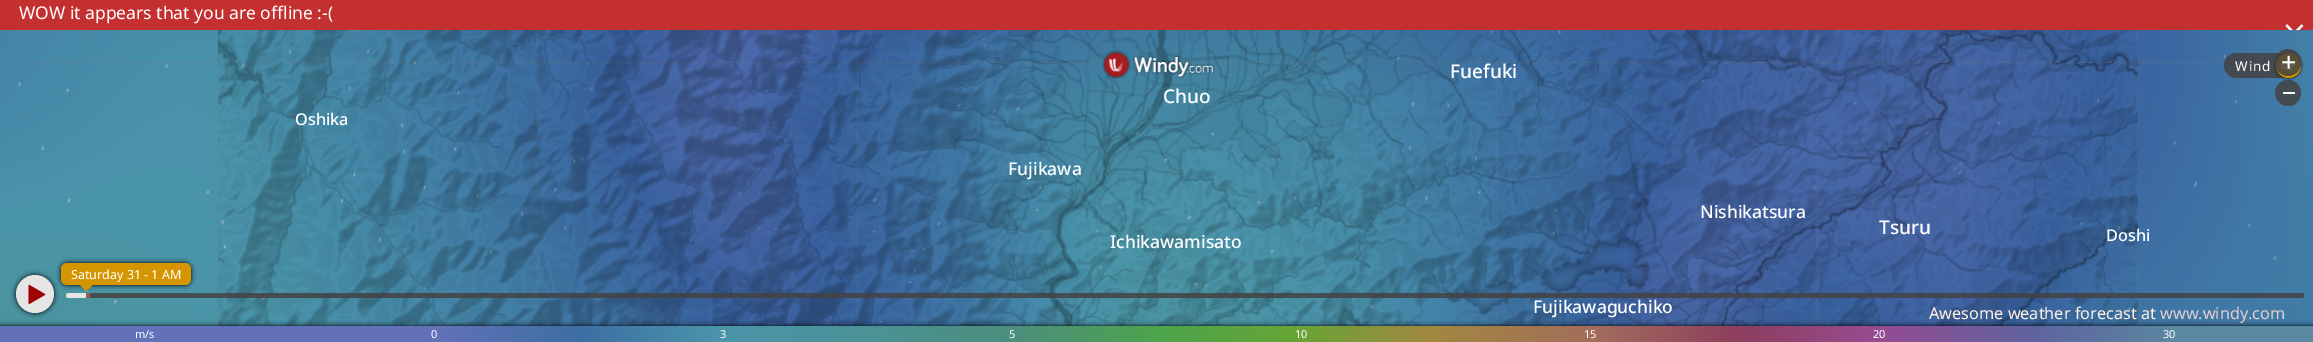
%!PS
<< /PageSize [2313 342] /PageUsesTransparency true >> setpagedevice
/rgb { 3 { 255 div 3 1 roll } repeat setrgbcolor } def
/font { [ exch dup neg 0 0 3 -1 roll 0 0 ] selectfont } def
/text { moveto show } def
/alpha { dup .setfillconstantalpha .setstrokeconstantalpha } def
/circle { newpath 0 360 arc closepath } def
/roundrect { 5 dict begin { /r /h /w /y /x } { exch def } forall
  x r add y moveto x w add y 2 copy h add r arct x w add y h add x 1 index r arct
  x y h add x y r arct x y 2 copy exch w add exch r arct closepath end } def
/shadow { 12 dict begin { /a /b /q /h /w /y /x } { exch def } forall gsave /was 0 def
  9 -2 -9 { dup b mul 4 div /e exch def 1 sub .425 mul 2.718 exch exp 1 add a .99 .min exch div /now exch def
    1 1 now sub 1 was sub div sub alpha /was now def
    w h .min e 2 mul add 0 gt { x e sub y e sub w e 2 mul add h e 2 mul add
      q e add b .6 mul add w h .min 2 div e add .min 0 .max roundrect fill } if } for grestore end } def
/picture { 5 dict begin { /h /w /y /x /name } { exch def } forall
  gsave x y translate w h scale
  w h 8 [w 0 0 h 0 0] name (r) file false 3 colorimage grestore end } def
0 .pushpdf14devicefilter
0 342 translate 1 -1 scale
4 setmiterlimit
128 128 128 rgb
0 0 2313 342 rectfill
196 47 47 rgb
0 0 2313 30 rectfill
(img_01.rgb) 2285 24 19 6 picture
(img_09.rgb) 857 30 321 33 picture
(img_10.rgb) 1177 30 321 33 picture
(img_17.rgb) 857 62 321 264 picture
(img_08.rgb) 537 30 321 33 picture
(img_16.rgb) 537 62 321 264 picture
(img_07.rgb) 217 30 321 33 picture
(img_15.rgb) 217 62 321 264 picture
(img_06.rgb) 0 30 218 33 picture
(img_18.rgb) 1177 62 321 264 picture
(img_11.rgb) 1497 30 321 33 picture
(img_19.rgb) 1497 62 321 264 picture
(img_12.rgb) 1817 30 321 33 picture
(img_20.rgb) 1817 62 321 264 picture
(img_13.rgb) 2137 30 176 33 picture
(img_14.rgb) 0 62 218 264 picture
(img_21.rgb) 2137 62 176 264 picture
(img_22.rgb) 17 30 2260 296 picture
(img_25.rgb) 858 30 320 33 picture
(img_31.rgb) 858 63 320 263 picture
(img_02.rgb) 1102 50 29 29 picture
(img_26.rgb) 1178 30 320 33 picture
(img_32.rgb) 1178 63 320 263 picture
(img_03.rgb) 1132 55 83 24 picture
0.84 alpha
68 65 65 rgb
2224 53 77 25 12.5 roundrect fill
1 alpha
0 0 0 rgb
2276 53 25 25 12.5 1.5 1 shadow
212 149 0 rgb
2288.5 65.5 12.5 circle fill
(img_04.rgb) 2281 61 14 10 picture
0.84 alpha
68 65 65 rgb
2275 49 26 27 13 roundrect fill
1 alpha
(img_05.rgb) 2282 55 14 14 picture
0.84 alpha
2288 93 13 circle fill
1 alpha
255 255 255 rgb
2283 92 12 2 rectfill
(img_23.rgb) 218 30 320 33 picture
(img_24.rgb) 538 30 320 33 picture
(img_27.rgb) 1498 30 320 33 picture
(img_28.rgb) 1818 30 320 33 picture
(img_29.rgb) 218 63 320 263 picture
(img_30.rgb) 538 63 320 263 picture
(img_33.rgb) 1498 63 320 263 picture
(img_34.rgb) 1818 63 320 263 picture
0 0 0 rgb
61 263 130 22 6 2.5 1 shadow
212 149 0 rgb
61 263 130 22 6 roundrect fill
0 0 0 rgb
16 275 38 38 19 2.5 1 shadow
229 229 229 rgb
35 294 19 circle fill
(img_35.rgb) 28 284 18 21 picture
212 149 0 rgb
80 285 moveto 12.5 0 rlineto -6.5 6 rlineto closepath fill
0.84 alpha
68 65 65 rgb
66 293 2238 5 2.5 roundrect fill
1 alpha
229 229 229 rgb
68.5 293 moveto 17.5 0 rlineto 0 5 rlineto -17.5 0 rlineto -1.5 0 -2.5 -1 -2.5 -2.5 rcurveto 0 -1.5 1 -2.5 2.5 -2.5 rcurveto closepath fill
148 96 81 rgb
86 293 4 5 rectfill
0 0 0 rgb
0 326 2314 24 0 2.5 1 shadow
gsave 0 326 moveto 2313 0 rlineto 0 16 rlineto -2313 0 rlineto closepath clip newpath
<< /ShadingType 2 /ColorSpace /DeviceRGB /Coords [0 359 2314 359] /Extend [true true] /Function << /FunctionType 3 /Domain [0 1] /Functions [<< /FunctionType 2 /Domain [0 1] /C0 [0.384 0.443 0.722] /C1 [0.384 0.443 0.722] /N 1 >> << /FunctionType 2 /Domain [0 1] /C0 [0.384 0.443 0.722] /C1 [0.239 0.431 0.639] /N 1 >> << /FunctionType 2 /Domain [0 1] /C0 [0.239 0.431 0.639] /C1 [0.29 0.58 0.667] /N 1 >> << /FunctionType 2 /Domain [0 1] /C0 [0.29 0.58 0.667] /C1 [0.29 0.573 0.58] /N 1 >> << /FunctionType 2 /Domain [0 1] /C0 [0.29 0.573 0.58] /C1 [0.302 0.557 0.486] /N 1 >> << /FunctionType 2 /Domain [0 1] /C0 [0.302 0.557 0.486] /C1 [0.298 0.643 0.298] /N 1 >> << /FunctionType 2 /Domain [0 1] /C0 [0.298 0.643 0.298] /C1 [0.404 0.643 0.212] /N 1 >> << /FunctionType 2 /Domain [0 1] /C0 [0.404 0.643 0.212] /C1 [0.635 0.529 0.251] /N 1 >> << /FunctionType 2 /Domain [0 1] /C0 [0.635 0.529 0.251] /C1 [0.635 0.427 0.361] /N 1 >> << /FunctionType 2 /Domain [0 1] /C0 [0.635 0.427 0.361] /C1 [0.553 0.247 0.361] /N 1 >> << /FunctionType 2 /Domain [0 1] /C0 [0.553 0.247 0.361] /C1 [0.592 0.294 0.569] /N 1 >> << /FunctionType 2 /Domain [0 1] /C0 [0.592 0.294 0.569] /C1 [0.373 0.392 0.627] /N 1 >> << /FunctionType 2 /Domain [0 1] /C0 [0.373 0.392 0.627] /C1 [0.357 0.533 0.631] /N 1 >> << /FunctionType 2 /Domain [0 1] /C0 [0.357 0.533 0.631] /C1 [0.357 0.533 0.631] /N 1 >>] /Bounds [0.19 0.25 0.31 0.38 0.44 0.5 0.56 0.62 0.69 0.75 0.81 0.88 0.94] /Encode [0 1 0 1 0 1 0 1 0 1 0 1 0 1 0 1 0 1 0 1 0 1 0 1 0 1 0 1] >> >> shfill grestore
/NotoSans-Regular 17.5 font
255 255 255 rgb
(WOW it appears that you are offline :-\() 19 19 text
/NotoSans-Regular 13.5 font
2235 71 moveto 1 0 (Wind) ashow
/NotoSans-Medium 19 font
(Fuefuki) 1450 78 text
(Chuo) 1163 103 text
/NotoSans-Medium 16.25 font
(Oshika) 295 125 text
/NotoSans-Medium 17.5 font
(Fujikawa) 1008 175 text
(Ichikawamisato) 1110 248 text
(Nishikatsura) 1700 218 text
(Fujikawaguchiko) 1533 313 text
/NotoSans-Medium 19 font
(Tsuru) 1879 234 text
/NotoSans-Medium 16.25 font
(Doshi) 2106 241 text
/NotoSans-Regular 12.5 font
(Saturday 31 - 1 AM) 71 279 text
/NotoSans-Regular 16.25 font
255 243 225 rgb
(Awesome weather forecast at) 1929 319 text
230 206 206 rgb
(www.windy.com) 2160 319 text
/NotoSans-Regular 11 font
255 255 255 rgb
(m/s) 135 338 text
(0) 431 338 text
(3) 720 338 text
(5) 1009 338 text
(10) 1295 338 text
(15) 1584 338 text
(20) 1873 338 text
(30) 2163 338 text
.poppdf14devicefilter showpage
